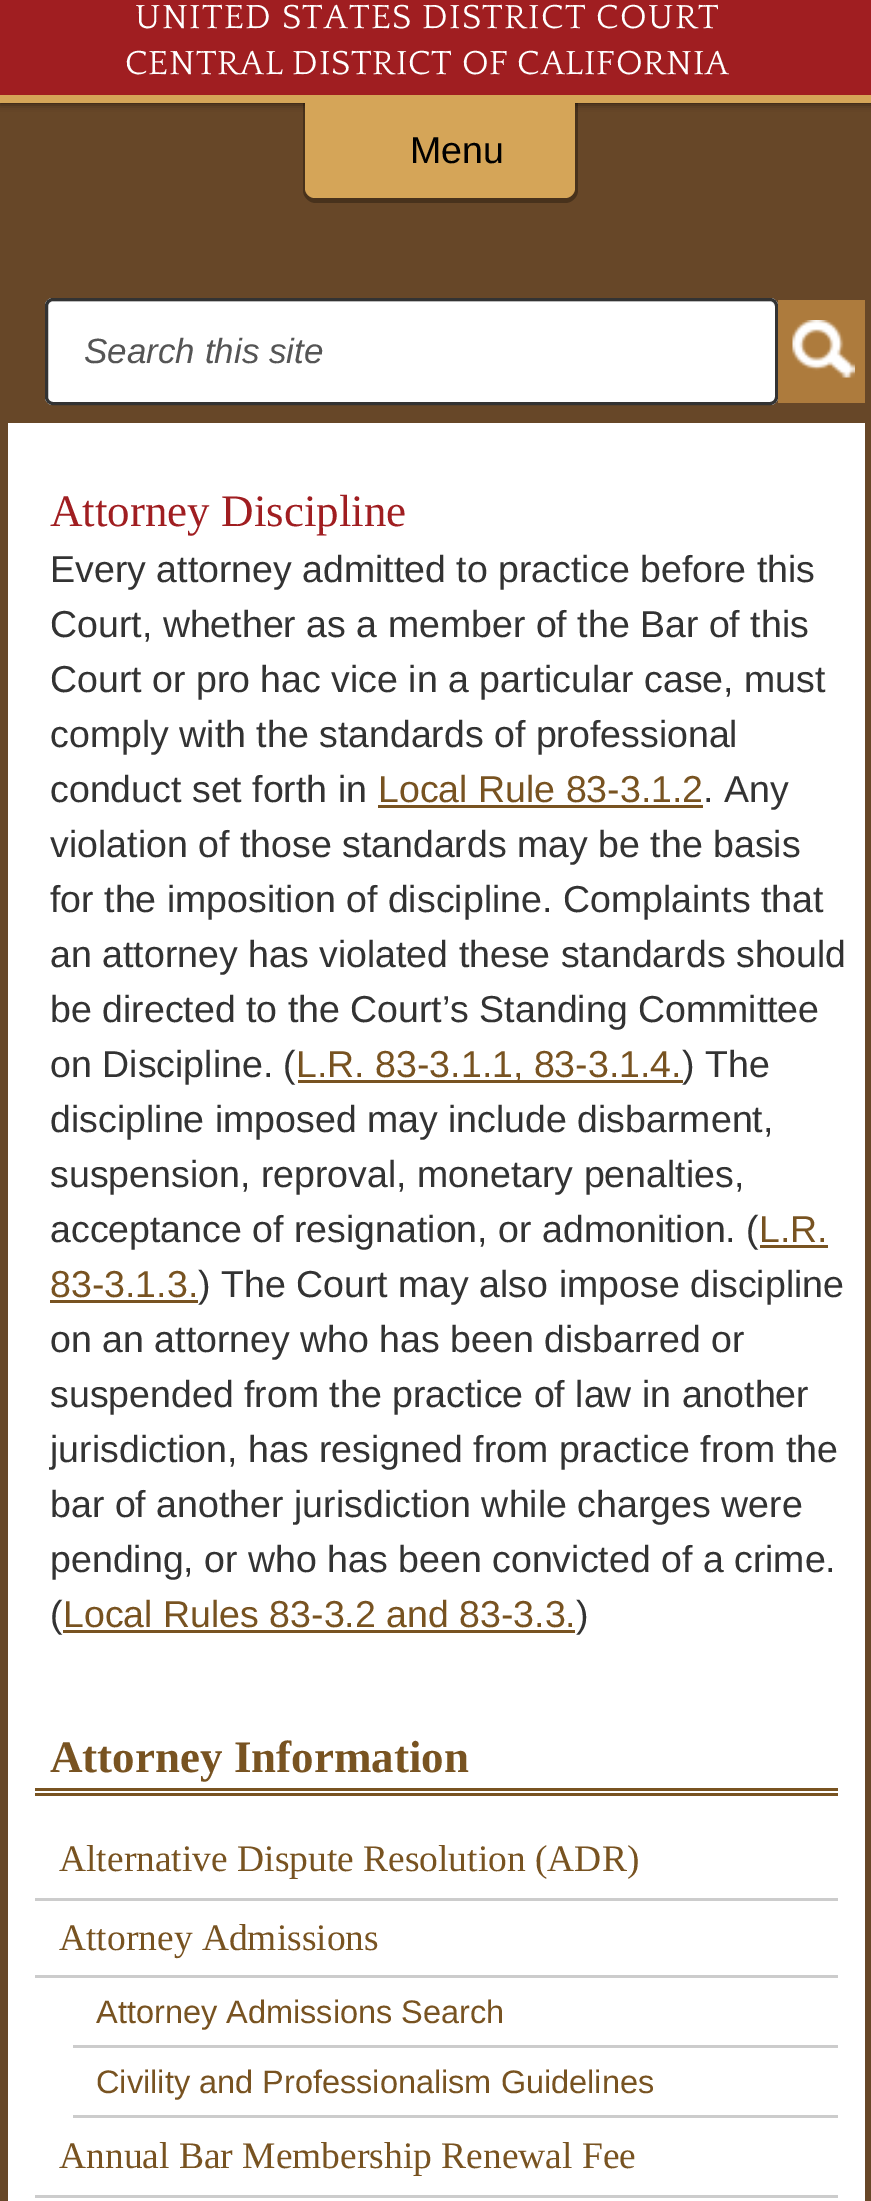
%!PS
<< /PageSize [871 2201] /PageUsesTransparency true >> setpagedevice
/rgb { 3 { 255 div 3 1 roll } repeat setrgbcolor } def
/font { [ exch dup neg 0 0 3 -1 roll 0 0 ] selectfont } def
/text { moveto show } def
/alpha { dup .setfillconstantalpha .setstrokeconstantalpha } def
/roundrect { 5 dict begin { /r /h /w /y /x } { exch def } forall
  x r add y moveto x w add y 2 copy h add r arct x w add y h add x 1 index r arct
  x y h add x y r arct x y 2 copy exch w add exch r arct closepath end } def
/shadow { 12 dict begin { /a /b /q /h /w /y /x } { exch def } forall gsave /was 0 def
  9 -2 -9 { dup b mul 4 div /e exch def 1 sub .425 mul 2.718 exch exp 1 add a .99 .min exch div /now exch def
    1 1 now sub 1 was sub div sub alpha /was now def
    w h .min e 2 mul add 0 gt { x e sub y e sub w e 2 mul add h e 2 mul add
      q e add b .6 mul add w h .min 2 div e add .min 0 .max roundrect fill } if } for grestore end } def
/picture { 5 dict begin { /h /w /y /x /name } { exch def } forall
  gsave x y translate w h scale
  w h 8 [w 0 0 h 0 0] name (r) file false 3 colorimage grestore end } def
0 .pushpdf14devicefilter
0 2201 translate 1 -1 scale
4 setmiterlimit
103 71 40 rgb
0 0 871 2201 rectfill
0 0 0 rgb
0 0 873 103 0 4 0.7 shadow
160 30 33 rgb
0 0 871 95 rectfill
213 165 88 rgb
0 95 871 8 rectfill
255 255 255 rgb
45 298 733 107 8 roundrect fill
236 236 236 rgb
52 302 moveto 718 0 rlineto 3 0 5 3 5 6 rcurveto 0 -4 0 -8 -5 -8 rcurveto -717 0 rlineto -5 0 -5 4 -5 8 rcurveto 0 -3 2 -6 4 -6 rcurveto closepath fill
51 51 51 rgb
3 setlinewidth
46.5 299.5 730 104 6.5 roundrect stroke
173 123 61 rgb
778 300 87 103 rectfill
(img_01.rgb) 792 320 63 58 picture
0.3 alpha
0 0 0 rgb
303 103 moveto 0 87 rlineto 0 7 6 13 13 13 rcurveto 249 0 rlineto 7 0 13 -6 13 -13 rcurveto 0 -87 rlineto -3 0 rlineto 0 85 rlineto 0 5 -4 10 -10 10 rcurveto -250 0 rlineto -6 0 -10 -5 -10 -10 rcurveto 0 -85 rlineto closepath fill
1 alpha
213 165 88 rgb
305 103 moveto 270 0 rlineto 0 85 rlineto 0 5.5 -4.5 10 -10 10 rcurveto -250 0 rlineto -5.5 0 -10 -4.5 -10 -10 rcurveto closepath fill
255 255 255 rgb
8 423 857 1778 rectfill
120 83 33 rgb
378 805 325 3 rectfill
298 1080 385 3 rectfill
760 1245 68 3 rectfill
50 1300 148 3 rectfill
63 1630 512 3 rectfill
35 1788 803 3 rectfill
35 1793 803 3 rectfill
204 204 204 rgb
35 1898 803 3 rectfill
35 1975 803 3 rectfill
73 2045 765 3 rectfill
73 2115 765 3 rectfill
35 2195 803 3 rectfill
/Quattrocento-Regular 35 font
255 255 255 rgb
135 28 moveto 1.25 0 (UNITED STATES DISTRICT COURT) ashow
125 74 moveto 0.7 0 (CENTRAL DISTRICT OF CALIFORNIA) ashow
/LiberationSans-Italic 35 font
85 85 85 rgb
(Search this site) 84 363 text
/LiberationSans-Regular 37.5 font
0 0 0 rgb
(Menu) 410 163 text
/LiberationSerif-Regular 45 font
160 30 33 rgb
(Attorney Discipline) 50 526 text
/LiberationSans-Regular 37.5 font
51 51 51 rgb
(Every attorney admitted to practice before this) 50 582 text
(Court, whether as a member of the Bar of this) 50 637 text
(Court or pro hac vice in a particular case, must) 50 692 text
(comply with the standards of professional) 50 747 text
(conduct set forth in) 50 802 text
120 83 33 rgb
(Local Rule 83-3.1.2) 378 802 text
51 51 51 rgb
(. Any) 703 802 text
(violation of those standards may be the basis) 50 857 text
(for the imposition of discipline. Complaints that) 50 912 text
(an attorney has violated these standards should) 50 967 text
(be directed to the Court’s Standing Committee) 50 1022 text
(on Discipline. \() 50 1077 text
120 83 33 rgb
(L.R. 83-3.1.1, 83-3.1.4.) 296 1077 text
51 51 51 rgb
(\) The) 682 1077 text
(discipline imposed may include disbarment,) 50 1132 text
(suspension, reproval, monetary penalties,) 50 1187 text
(acceptance of resignation, or admonition. \() 50 1242 text
120 83 33 rgb
(L.R.) 759 1242 text
(83-3.1.3.) 50 1297 text
51 51 51 rgb
(\) The Court may also impose discipline) 198 1297 text
(on an attorney who has been disbarred or) 50 1352 text
(suspended from the practice of law in another) 50 1407 text
(jurisdiction, has resigned from practice from the) 50 1462 text
(bar of another jurisdiction while charges were) 50 1517 text
(pending, or who has been convicted of a crime.) 50 1572 text
(\() 50 1627 text
120 83 33 rgb
(Local Rules 83-3.2 and 83-3.3.) 63 1627 text
51 51 51 rgb
(\)) 576 1627 text
/LiberationSerif-Bold 45 font
120 83 33 rgb
(Attorney Information) 50 1772 text
/LiberationSerif-Regular 37.5 font
(Alternative Dispute Resolution \(ADR\)) 59 1871 text
(Attorney Admissions) 59 1950 text
/LiberationSans-Regular 32.5 font
(Attorney Admissions Search) 96 2023 text
(Civility and Professionalism Guidelines) 96 2093 text
/LiberationSerif-Regular 37.5 font
(Annual Bar Membership Renewal Fee) 59 2168 text
.poppdf14devicefilter showpage
